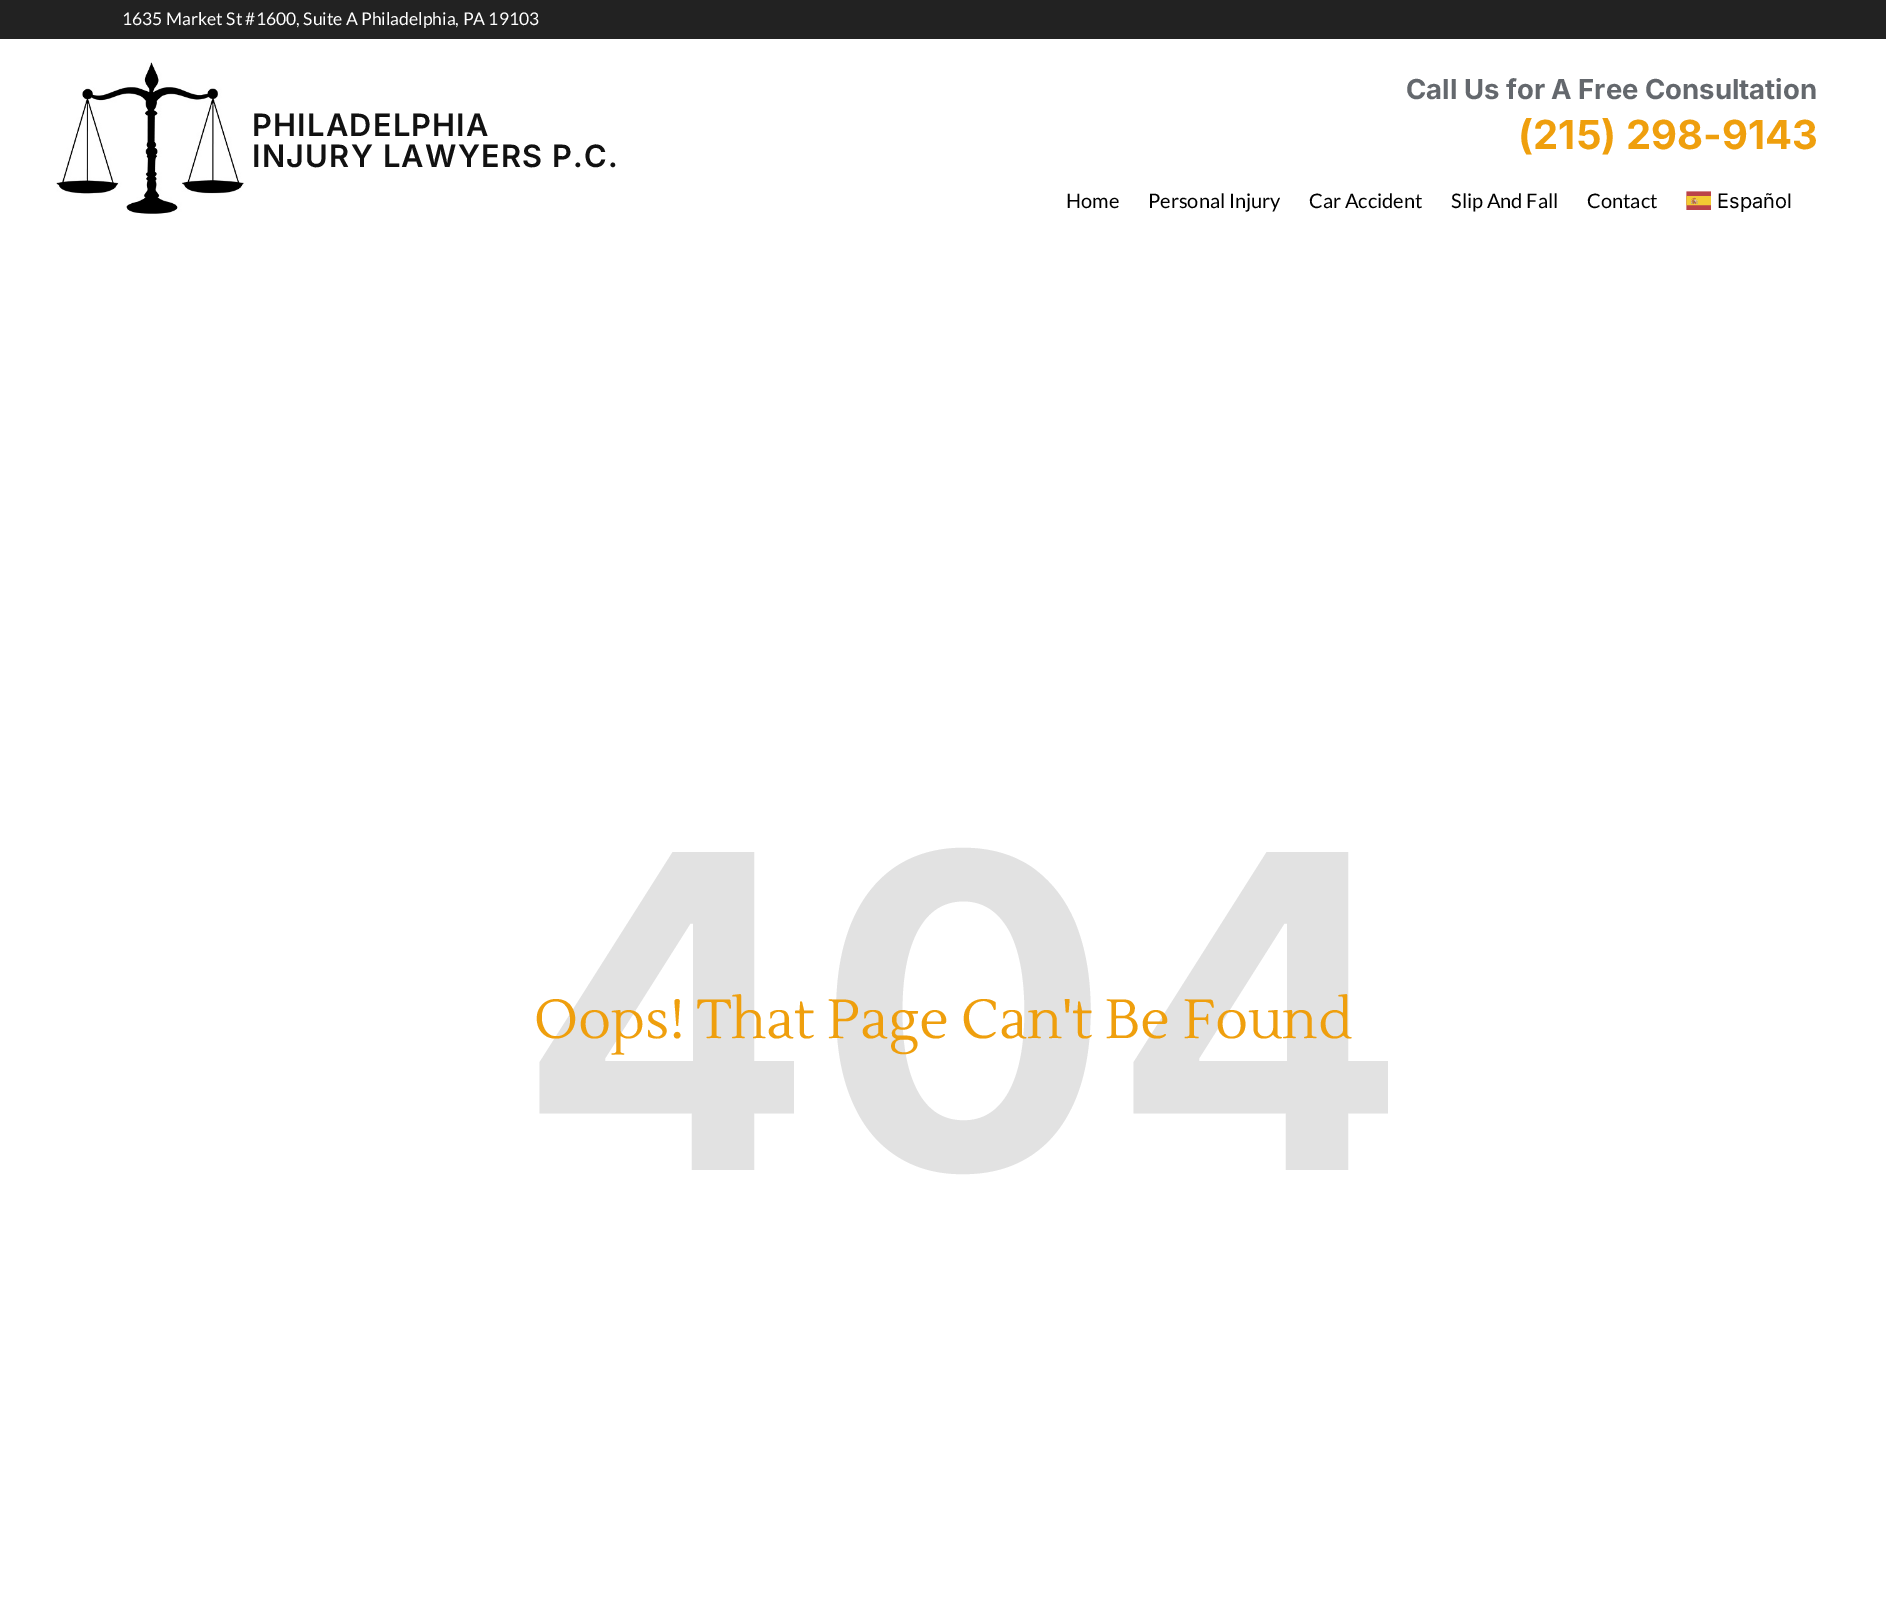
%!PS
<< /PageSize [1886 1603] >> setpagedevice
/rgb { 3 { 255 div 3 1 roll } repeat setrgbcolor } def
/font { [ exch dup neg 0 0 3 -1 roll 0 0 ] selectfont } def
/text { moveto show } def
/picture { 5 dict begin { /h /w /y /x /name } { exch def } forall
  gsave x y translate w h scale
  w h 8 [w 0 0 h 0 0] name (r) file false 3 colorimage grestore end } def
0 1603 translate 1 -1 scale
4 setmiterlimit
255 255 255 rgb
0 0 1886 1603 rectfill
34 34 34 rgb
0 0 1886 39 rectfill
(img_01.rgb) 56 62 188 152 picture
(img_02.rgb) 1686 191 25 19 picture
/Lato-Regular 17.5 font
255 255 255 rgb
(1635 Market St #1600, Suite A Philadelphia, PA 19103) 122 25 text
/Inter-SemiBold 30.75 font
17 17 17 rgb
252 136 moveto 1.25 0 (PHILADELPHIA) ashow
252 167 moveto 1.25 0 (INJURY LAWYERS P.C.) ashow
/Inter-Bold 27.5 font
100 104 109 rgb
(Call Us for A Free Consultation) 1406 99 text
/Inter-Bold 40 font
239 159 13 rgb
(\(215\) 298-9143) 1518 149 text
/Lato-Regular 20 font
0 0 0 rgb
(Home) 1066 208 text
(Personal Injury) 1148 208 text
(Car Accident) 1309 208 text
(Slip And Fall) 1451 208 text
(Contact) 1587 208 text
/Inter-Regular 20 font
(Español) 1717 208 text
/Inter-Bold 440 font
226 226 226 rgb
(404) 518 1170 text
/Lustria-Regular 55 font
239 159 13 rgb
(Oops! That Page Can't Be Found) 534 1038 text
showpage
